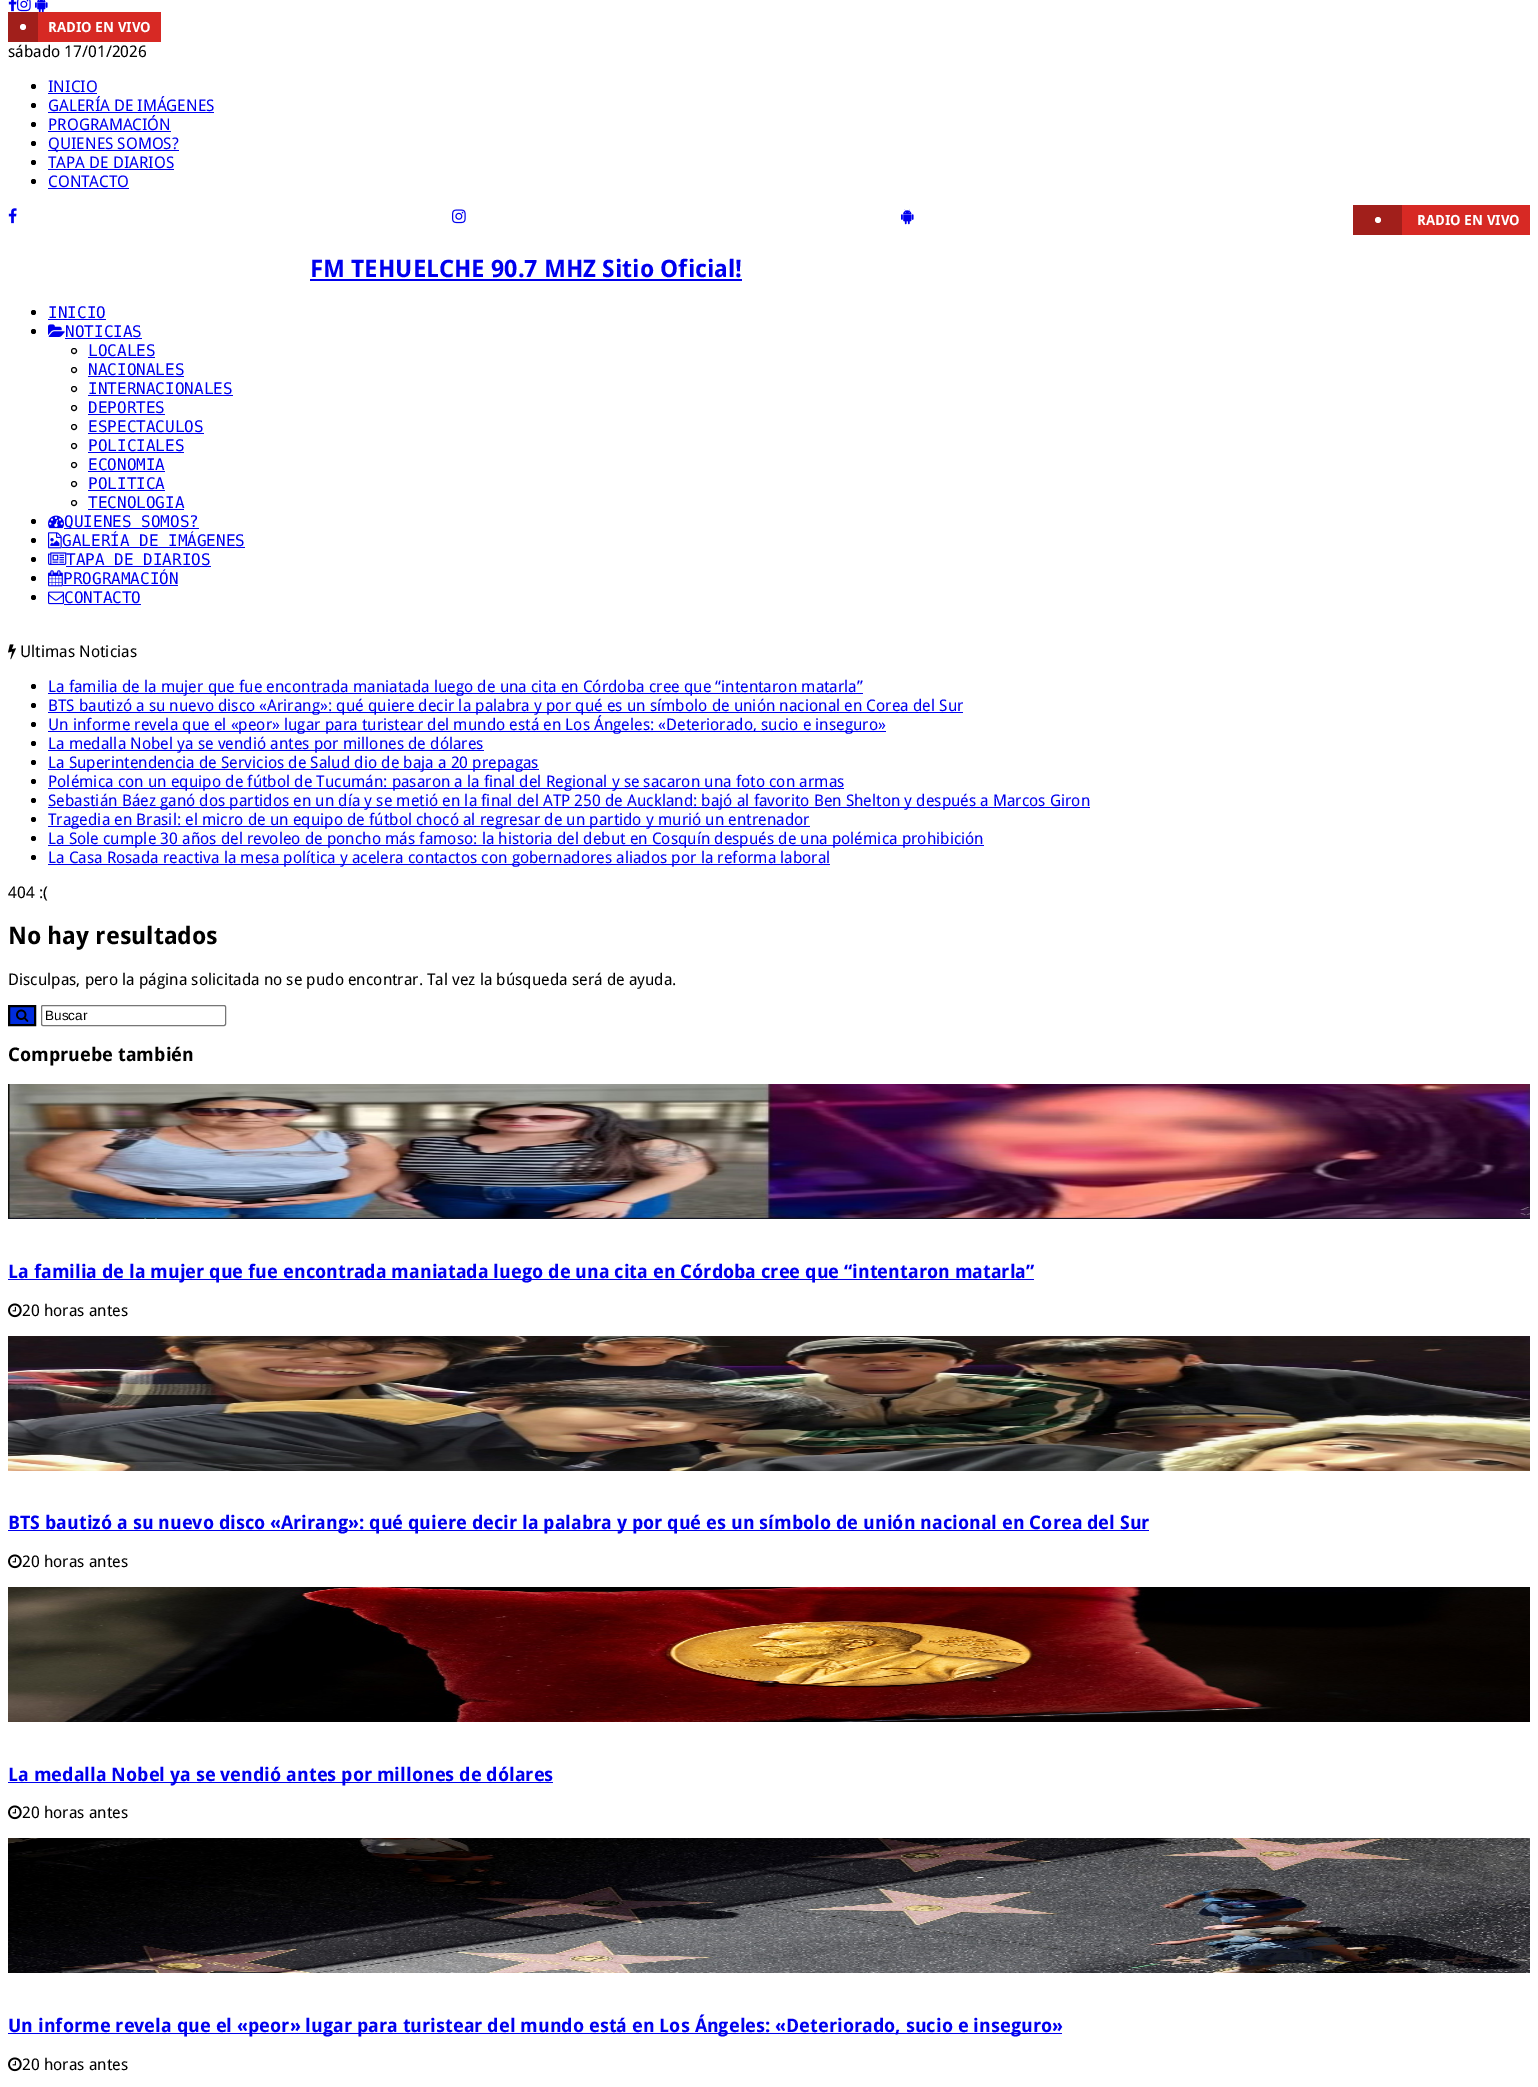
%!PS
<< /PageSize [1538 2087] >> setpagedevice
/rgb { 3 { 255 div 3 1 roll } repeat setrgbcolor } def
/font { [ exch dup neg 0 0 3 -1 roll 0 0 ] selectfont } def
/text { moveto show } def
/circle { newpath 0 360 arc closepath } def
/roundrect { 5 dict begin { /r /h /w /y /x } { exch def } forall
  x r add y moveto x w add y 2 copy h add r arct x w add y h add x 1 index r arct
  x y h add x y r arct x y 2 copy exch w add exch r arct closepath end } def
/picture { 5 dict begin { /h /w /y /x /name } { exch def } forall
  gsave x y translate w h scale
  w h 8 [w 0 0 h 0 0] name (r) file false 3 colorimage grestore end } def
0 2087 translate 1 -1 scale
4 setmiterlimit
255 255 255 rgb
0 0 1538 2087 rectfill
(img_01.rgb) 8 0 9 12 picture
(img_02.rgb) 17 0 14 12 picture
(img_03.rgb) 35 0 13 12 picture
215 41 36 rgb
38 12 123 30 rectfill
161 31 27 rgb
8 12 30 30 rectfill
255 255 255 rgb
23 27 3 circle fill
0 0 0 rgb
33.5 86.5 2.5 circle fill
0 0 238 rgb
48 93 49 1 rectfill
0 0 0 rgb
33.5 105.5 2.5 circle fill
0 0 238 rgb
48 112 166 1 rectfill
0 0 0 rgb
33.5 124.5 2.5 circle fill
0 0 238 rgb
48 131 123 1 rectfill
0 0 0 rgb
33.5 143.5 2.5 circle fill
0 0 238 rgb
48 150 131 1 rectfill
0 0 0 rgb
33.5 162.5 2.5 circle fill
0 0 238 rgb
48 169 126 1 rectfill
0 0 0 rgb
33.5 181.5 2.5 circle fill
0 0 238 rgb
48 188 81 1 rectfill
(img_04.rgb) 8 208 9 16 picture
(img_05.rgb) 452 209 14 15 picture
(img_06.rgb) 901 209 13 16 picture
215 41 36 rgb
1402 205 128 30 rectfill
161 31 27 rgb
1353 205 49 30 rectfill
255 255 255 rgb
1378 220 3 circle fill
0 0 238 rgb
310 279 432 2 rectfill
0 0 0 rgb
33.5 312.5 2.5 circle fill
0 0 238 rgb
48 319 58 1 rectfill
0 0 0 rgb
33.5 331.5 2.5 circle fill
(img_07.rgb) 48 324 17 13 picture
0 0 238 rgb
65 338 77 1 rectfill
0 0 0 rgb
74 351 2.5 circle stroke
0 0 238 rgb
88 357 67 1 rectfill
0 0 0 rgb
74 370 2.5 circle stroke
0 0 238 rgb
88 376 96 1 rectfill
0 0 0 rgb
74 389 2.5 circle stroke
0 0 238 rgb
88 395 145 1 rectfill
0 0 0 rgb
74 408 2.5 circle stroke
0 0 238 rgb
88 414 77 1 rectfill
0 0 0 rgb
74 427 2.5 circle stroke
0 0 238 rgb
88 433 116 1 rectfill
0 0 0 rgb
74 446 2.5 circle stroke
0 0 238 rgb
88 452 96 1 rectfill
0 0 0 rgb
74 465 2.5 circle stroke
0 0 238 rgb
88 471 77 1 rectfill
0 0 0 rgb
74 484 2.5 circle stroke
0 0 238 rgb
88 490 77 1 rectfill
0 0 0 rgb
74 503 2.5 circle stroke
0 0 238 rgb
88 509 96 1 rectfill
0 0 0 rgb
33.5 521.5 2.5 circle fill
(img_08.rgb) 48 515 16 14 picture
0 0 238 rgb
64 528 135 1 rectfill
0 0 0 rgb
33.5 540.5 2.5 circle fill
(img_09.rgb) 48 532 14 17 picture
0 0 238 rgb
62 547 183 1 rectfill
0 0 0 rgb
33.5 559.5 2.5 circle fill
(img_10.rgb) 48 552 19 13 picture
0 0 238 rgb
66 566 145 1 rectfill
0 0 0 rgb
33.5 578.5 2.5 circle fill
(img_11.rgb) 48 570 15 17 picture
0 0 238 rgb
63 585 115 1 rectfill
0 0 0 rgb
33.5 597.5 2.5 circle fill
(img_12.rgb) 48 591 16 14 picture
0 0 238 rgb
64 604 77 1 rectfill
(img_13.rgb) 8 644 8 16 picture
0 0 0 rgb
33.5 686.5 2.5 circle fill
0 0 238 rgb
48 693 815 1 rectfill
0 0 0 rgb
33.5 705.5 2.5 circle fill
0 0 238 rgb
48 712 915 1 rectfill
0 0 0 rgb
33.5 724.5 2.5 circle fill
0 0 238 rgb
48 731 838 1 rectfill
0 0 0 rgb
33.5 743.5 2.5 circle fill
0 0 238 rgb
48 750 436 1 rectfill
0 0 0 rgb
33.5 762.5 2.5 circle fill
0 0 238 rgb
48 769 491 1 rectfill
0 0 0 rgb
33.5 781.5 2.5 circle fill
0 0 238 rgb
48 788 796 1 rectfill
0 0 0 rgb
33.5 800.5 2.5 circle fill
0 0 238 rgb
48 807 1042 1 rectfill
0 0 0 rgb
33.5 819.5 2.5 circle fill
0 0 238 rgb
48 826 762 1 rectfill
0 0 0 rgb
33.5 838.5 2.5 circle fill
0 0 238 rgb
48 845 936 1 rectfill
0 0 0 rgb
33.5 857.5 2.5 circle fill
0 0 238 rgb
48 864 782 1 rectfill
0 44 222 rgb
9 1006 moveto 26 0 rlineto 0 19 rlineto -26 0 rlineto closepath gsave fill grestore
0 0 0 rgb
2 setlinewidth
stroke
(img_14.rgb) 16 1009 13 13 picture
118 118 118 rgb
1 setlinewidth
41.5 1005.5 184 20 1.5 roundrect stroke
(img_15.rgb) 8 1084 1522 135 picture
0 0 238 rgb
8 1279 1026 1 rectfill
(img_16.rgb) 8 1303 14 15 picture
(img_17.rgb) 8 1336 1522 135 picture
8 1530 1141 1 rectfill
(img_16.rgb) 8 1554 14 15 picture
(img_18.rgb) 8 1587 1522 135 picture
8 1782 545 1 rectfill
(img_16.rgb) 8 1805 14 15 picture
(img_19.rgb) 8 1838 1522 135 picture
8 2033 1054 1 rectfill
(img_16.rgb) 8 2057 14 15 picture
/DroidSans-Bold 14 font
255 255 255 rgb
(RADIO EN VIVO) 48 32 text
/DroidSans-Regular 16 font
0 0 0 rgb
(sábado 17/01/2026) 8 57 text
0 0 238 rgb
(INICIO) 48 92 text
(GALERÍA DE IMÁGENES) 48 111 text
(PROGRAMACIÓN) 48 130 text
(QUIENES SOMOS?) 48 149 text
(TAPA DE DIARIOS) 48 168 text
(CONTACTO) 48 187 text
/DroidSans-Bold 14 font
255 255 255 rgb
(RADIO EN VIVO) 1417 225 text
/DroidSans-Bold 24 font
0 0 238 rgb
(FM TEHUELCHE 90.7 MHZ Sitio Oficial!) 310 277 text
/DejaVuSansMono-Regular 16 font
(INICIO) 48 318 text
(NOTICIAS) 65 337 text
(LOCALES) 88 356 text
(NACIONALES) 88 375 text
(INTERNACIONALES) 88 394 text
(DEPORTES) 88 413 text
(ESPECTACULOS) 88 432 text
(POLICIALES) 88 451 text
(ECONOMIA) 88 470 text
(POLITICA) 88 489 text
(TECNOLOGIA) 88 508 text
(QUIENES SOMOS?) 64 527 text
(GALERÍA DE IMÁGENES) 62 546 text
(TAPA DE DIARIOS) 66 565 text
(PROGRAMACIÓN) 63 584 text
(CONTACTO) 64 603 text
/DroidSans-Regular 16 font
0 0 0 rgb
(Ultimas Noticias) 20 657 text
0 0 238 rgb
(La familia de la mujer que fue encontrada maniatada luego de una cita en Córdoba cree que “intentaron matarla”) 48 692 text
(BTS bautizó a su nuevo disco «Arirang»: qué quiere decir la palabra y por qué es un símbolo de unión nacional en Corea del Sur) 48 711 text
(Un informe revela que el «peor» lugar para turistear del mundo está en Los Ángeles: «Deteriorado, sucio e inseguro») 48 730 text
(La medalla Nobel ya se vendió antes por millones de dólares) 48 749 text
(La Superintendencia de Servicios de Salud dio de baja a 20 prepagas) 48 768 text
(Polémica con un equipo de fútbol de Tucumán: pasaron a la final del Regional y se sacaron una foto con armas) 48 787 text
(Sebastián Báez ganó dos partidos en un día y se metió en la final del ATP 250 de Auckland: bajó al favorito Ben Shelton y después a Marcos Giron) 48 806 text
(Tragedia en Brasil: el micro de un equipo de fútbol chocó al regresar de un partido y murió un entrenador) 48 825 text
(La Sole cumple 30 años del revoleo de poncho más famoso: la historia del debut en Cosquín después de una polémica prohibición) 48 844 text
(La Casa Rosada reactiva la mesa política y acelera contactos con gobernadores aliados por la reforma laboral) 48 863 text
0 0 0 rgb
(404 :\() 8 898 text
/DroidSans-Bold 24 font
(No hay resultados) 8 944 text
/DroidSans-Regular 16 font
(Disculpas, pero la página solicitada no se pudo encontrar. Tal vez la búsqueda será de ayuda.) 8 985 text
/LiberationSans-Regular 13.5 font
(Buscar) 45 1020 text
/DroidSans-Bold 18.72 font
(Compruebe también) 8 1061 text
0 0 238 rgb
(La familia de la mujer que fue encontrada maniatada luego de una cita en Córdoba cree que “intentaron matarla”) 8 1278 text
/DroidSans-Regular 16 font
0 0 0 rgb
(20 horas antes) 22 1316 text
/DroidSans-Bold 18.72 font
0 0 238 rgb
(BTS bautizó a su nuevo disco «Arirang»: qué quiere decir la palabra y por qué es un símbolo de unión nacional en Corea del Sur) 8 1529 text
/DroidSans-Regular 16 font
0 0 0 rgb
(20 horas antes) 22 1567 text
/DroidSans-Bold 18.72 font
0 0 238 rgb
(La medalla Nobel ya se vendió antes por millones de dólares) 8 1781 text
/DroidSans-Regular 16 font
0 0 0 rgb
(20 horas antes) 22 1818 text
/DroidSans-Bold 18.72 font
0 0 238 rgb
(Un informe revela que el «peor» lugar para turistear del mundo está en Los Ángeles: «Deteriorado, sucio e inseguro») 8 2032 text
/DroidSans-Regular 16 font
0 0 0 rgb
(20 horas antes) 22 2070 text
showpage
